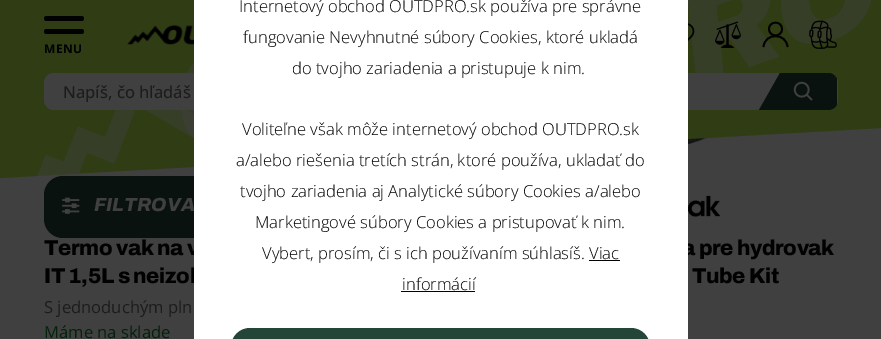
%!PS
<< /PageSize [881 339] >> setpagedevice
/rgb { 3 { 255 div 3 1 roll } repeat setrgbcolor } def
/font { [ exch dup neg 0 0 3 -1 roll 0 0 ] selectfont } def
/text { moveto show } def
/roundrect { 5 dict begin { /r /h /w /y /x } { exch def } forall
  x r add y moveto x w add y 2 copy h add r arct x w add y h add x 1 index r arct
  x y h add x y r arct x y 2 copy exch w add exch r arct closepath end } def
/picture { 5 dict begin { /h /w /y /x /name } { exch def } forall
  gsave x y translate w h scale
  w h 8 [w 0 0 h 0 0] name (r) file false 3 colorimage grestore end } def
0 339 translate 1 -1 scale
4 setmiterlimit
64 64 64 rgb
0 0 881 339 rectfill
9 18 14 rgb
44 176 182 62 19 roundrect fill
(img_09.rgb) 688 135 66 21 picture
47 60 20 rgb
0 -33 moveto 0 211 rlineto 881 -50 rlineto 0 -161 rlineto closepath fill
(img_01.rgb) 688 0 184 73 picture
(img_02.rgb) 37 63 157 113 picture
(img_03.rgb) 127 25 67 20 picture
1 1 1 rgb
44 16 40 5 2.5 roundrect fill
44 29 40 5 2.5 roundrect fill
(img_04.rgb) 688 23 7 18 picture
(img_05.rgb) 715 21 26 27 picture
1.8 setlinewidth
782 29 moveto 0 8.5 -13 8.5 -13 0 rcurveto 0 -8.5 13 -8.5 13 0 rcurveto closepath 787.5 47 moveto -1 -14.5 -23 -14.5 -24 0 rcurveto stroke
(img_06.rgb) 809 20 28 29 picture
64 64 64 rgb
44 73 794 37 10 roundrect fill
9 18 14 rgb
780 73 moveto 49 0 rlineto 3 0 7 3 8 6 rcurveto 0 25 rlineto -1 4 -5 6 -9 6 rcurveto -69 0 rlineto closepath fill
(img_07.rgb) 793 81 20 20 picture
(img_08.rgb) 62 197 18 17 picture
(img_10.rgb) 688 191 32 31 picture
/OpenSans-Bold 12 font
1 1 1 rgb
44 53 moveto 0.5 0 (MENU) ashow
/OpenSans-Medium 16.6 font
28 28 28 rgb
(Napíš, čo hľadáš) 63 98 text
/Archivo-ExtraBoldItalic 19 font
64 64 64 rgb
(FILTROVA) 94 211 text
/Archivo-ExtraBold 21.5 font
1 1 1 rgb
44 255 moveto -0.4 0 (Termo vak na v) ashow
44 283 moveto -0.4 0 (IT 1,5L s neizol) ashow
/OpenSans-Regular 16.6 font
28 28 28 rgb
(S jednoduchým pln) 44 313 text
3 34 12 rgb
(Máme na sklade) 44 338 text
/Archivo-ExtraBold 21.5 font
1 1 1 rgb
682 255 moveto -0.4 0 (a pre hydrovak) ashow
255 255 255 rgb
194 0 494 339 rectfill
36 70 56 rgb
231 328 419 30 19 roundrect fill
/OpenSans-Light 16.6 font
1 1 1 rgb
(informácií) 402 290 text
3 3 3 rgb
401 291 74 1 rectfill
1 1 1 rgb
(Vybert, prosím, či s ich používaním súhlasíš. Viac) 262 259 text
3 3 3 rgb
589 260 31 1 rectfill
1 1 1 rgb
(Marketingové súbory Cookies a pristupovať k nim.) 255 228 text
(tvojho zariadenia aj Analytické súbory Cookies a/alebo) 240 197 text
(a/alebo riešenia tretích strán, ktoré používa, ukladať do) 236 166 text
(Voliteľne však môže internetový obchod OUTDPRO.sk) 242 135 text
(do tvojho zariadenia a pristupuje k nim.) 292 74 text
(fungovanie Nevyhnutné súbory Cookies, ktoré ukladá) 243 43 text
(Internetový obchod OUTDPRO.sk používa pre správne) 239 12 text
/Archivo-ExtraBold 21.5 font
692 283 moveto -0.4 0 (Tube Kit) ashow
showpage
